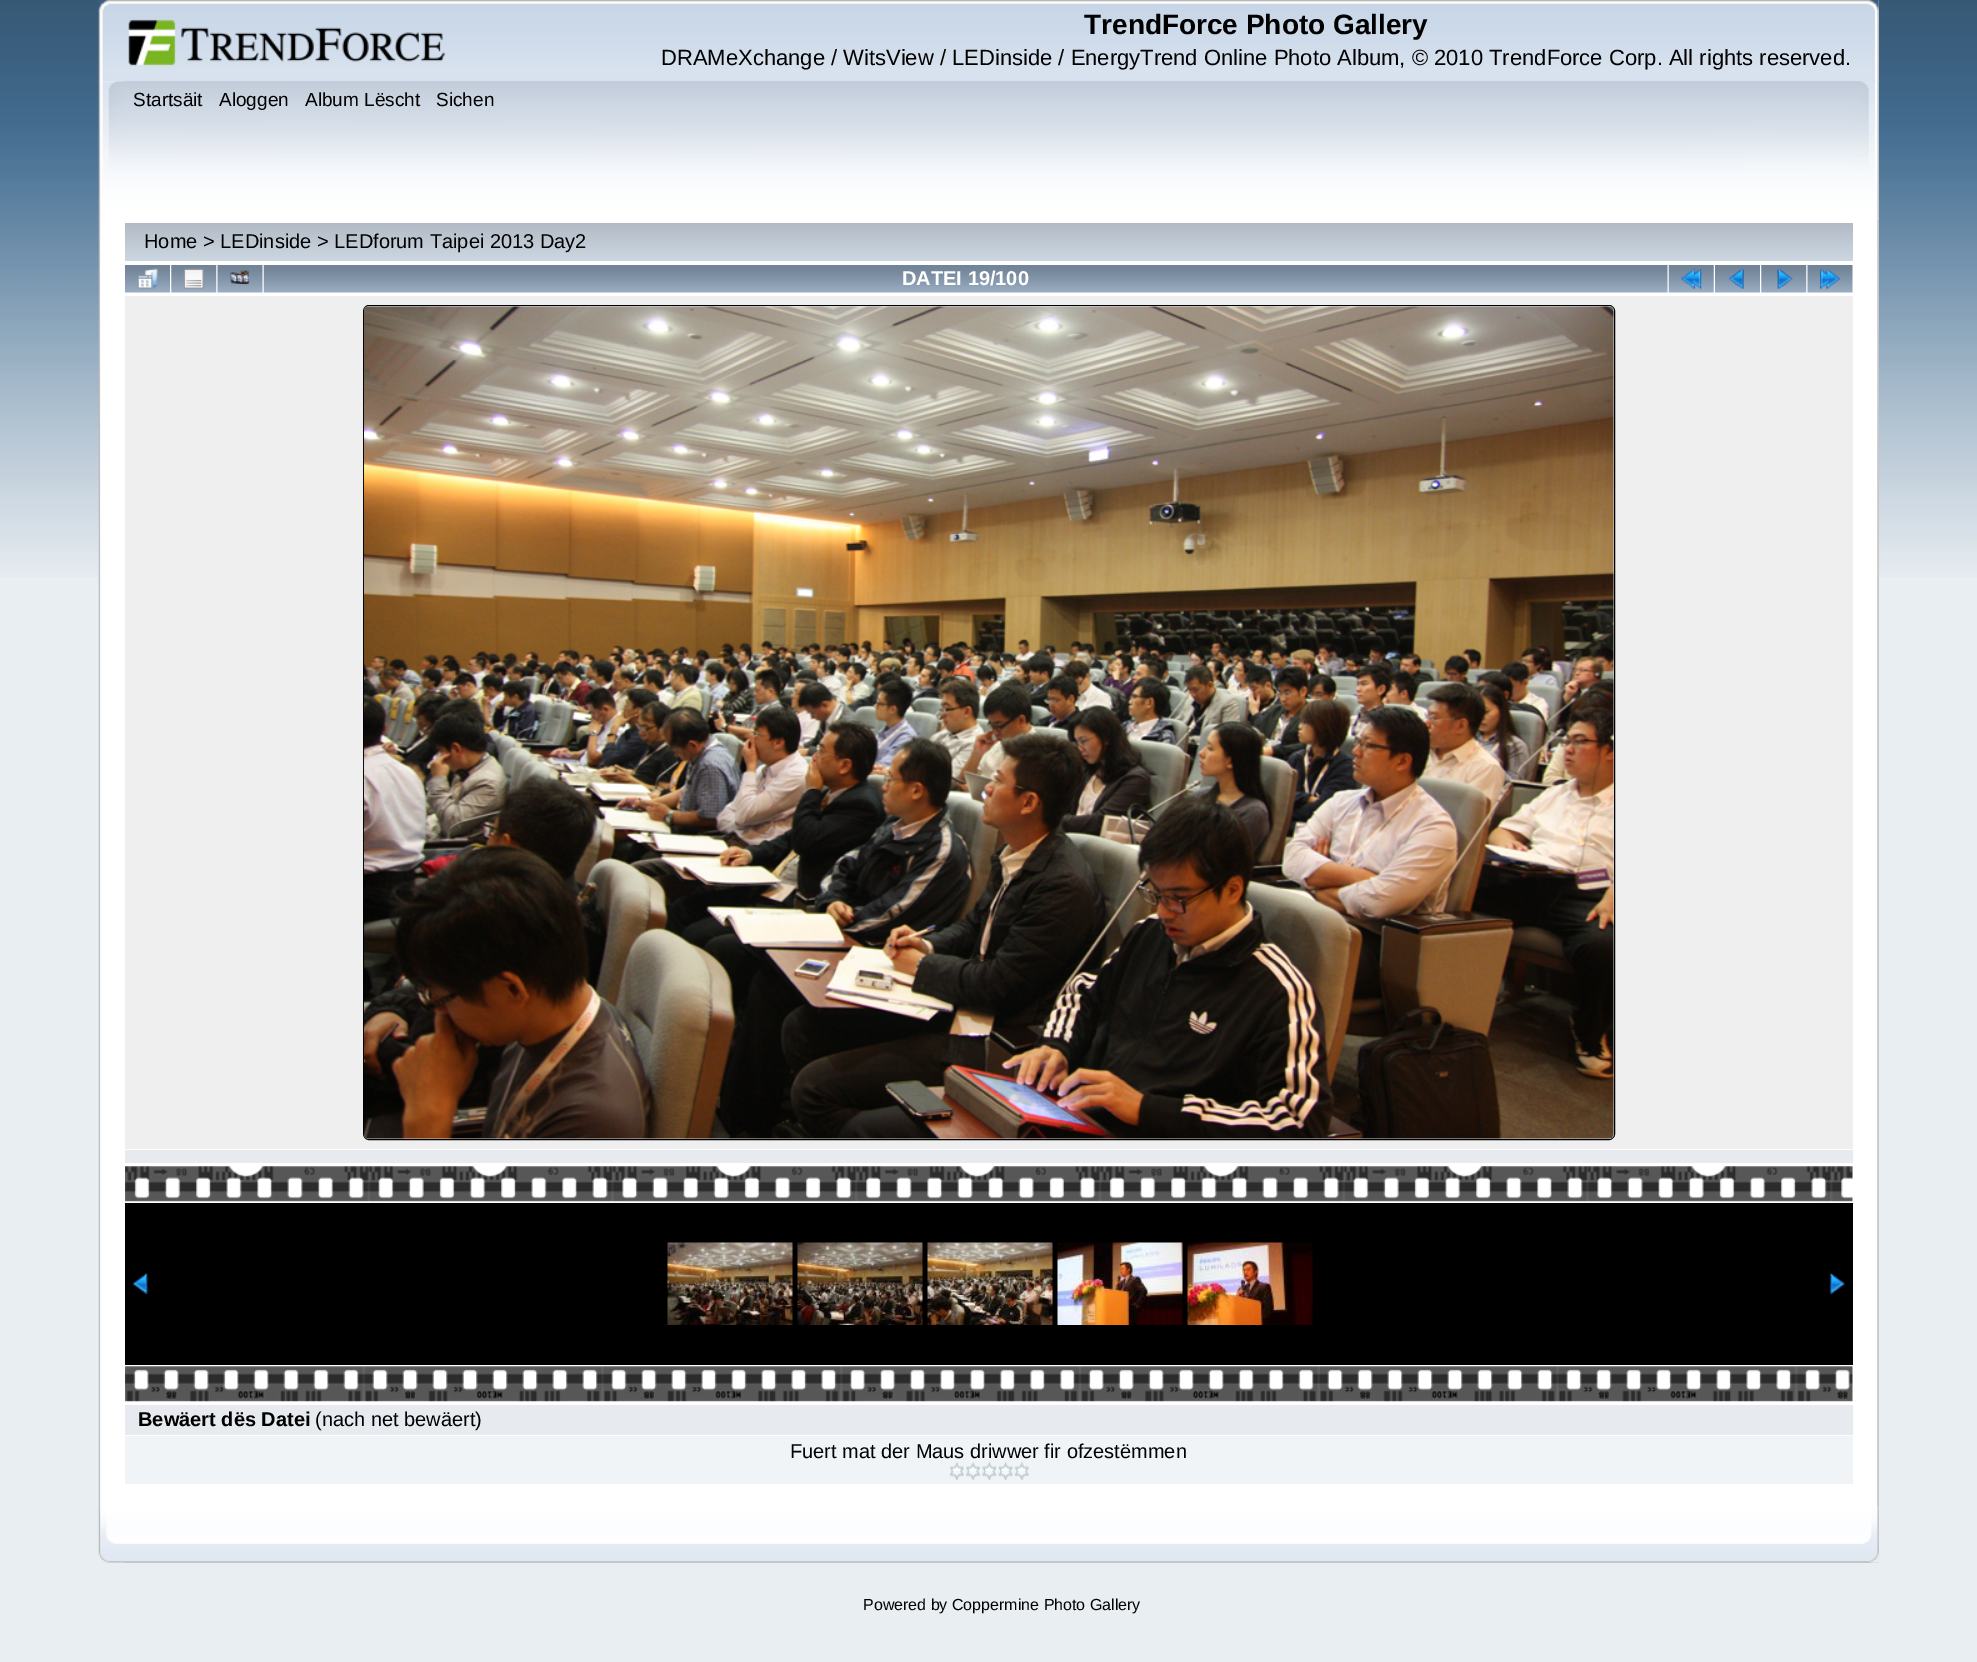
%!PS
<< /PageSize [1977 1662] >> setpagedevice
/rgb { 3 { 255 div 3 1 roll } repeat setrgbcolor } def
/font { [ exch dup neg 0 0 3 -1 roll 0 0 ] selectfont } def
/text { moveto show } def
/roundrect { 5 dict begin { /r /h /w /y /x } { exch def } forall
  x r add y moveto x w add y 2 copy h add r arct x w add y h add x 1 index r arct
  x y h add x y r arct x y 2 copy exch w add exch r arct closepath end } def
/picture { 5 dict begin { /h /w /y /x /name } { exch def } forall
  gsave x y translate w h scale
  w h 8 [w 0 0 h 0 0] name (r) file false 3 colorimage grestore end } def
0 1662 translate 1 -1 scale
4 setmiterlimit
233 238 242 rgb
0 0 1977 1662 rectfill
(img_01.rgb) 0 0 1977 577 picture
(img_02.rgb) 98 0 1781 82 picture
(img_03.rgb) 123 0 1756 82 picture
(img_04.rgb) 128 19 318 47 picture
(img_05.rgb) 98 81 1781 138 picture
(img_06.rgb) 124 81 1755 138 picture
(img_07.rgb) 98 218 1781 1290 picture
(img_36.rgb) 98 1507 1781 56 picture
(img_37.rgb) 124 1507 1755 56 picture
(img_08.rgb) 1877 218 2 1290 picture
gsave 125 223 moveto 1728 0 rlineto 0 38 rlineto -1728 0 rlineto closepath clip newpath
<< /ShadingType 2 /ColorSpace /DeviceRGB /Coords [989 222 989 261] /Extend [true true] /Function << /FunctionType 2 /Domain [0 1] /C0 [0.694 0.729 0.769] /C1 [0.804 0.843 0.882] /N 1 >> >> shfill grestore
(img_09.rgb) 125 265 45 28 picture
(img_10.rgb) 137 268 21 21 picture
(img_11.rgb) 171 265 46 28 picture
(img_12.rgb) 183 268 21 21 picture
(img_13.rgb) 217 265 46 28 picture
(img_14.rgb) 230 270 20 15 picture
(img_15.rgb) 263 265 1405 28 picture
(img_16.rgb) 1668 265 46 28 picture
(img_17.rgb) 1681 268 21 21 picture
(img_09.rgb) 1715 265 45 28 picture
(img_18.rgb) 1728 268 16 21 picture
(img_11.rgb) 1761 265 46 28 picture
(img_19.rgb) 1777 268 16 21 picture
(img_13.rgb) 1807 265 46 28 picture
(img_20.rgb) 1820 268 20 21 picture
239 239 239 rgb
125 296 1728 853 rectfill
0 0 0 rgb
363.5 305.5 1251 834 5.5 roundrect stroke
(img_21.rgb) 363 306 1251 833 picture
231 234 239 rgb
125 1150 1728 13 rectfill
(img_22.rgb) 125 1166 1728 36 picture
0 0 0 rgb
125 1203 1728 162 rectfill
(img_23.rgb) 132 1273 16 21 picture
(img_24.rgb) 667 1242 126 83 picture
(img_25.rgb) 797 1242 126 83 picture
(img_26.rgb) 927 1242 126 83 picture
(img_27.rgb) 1057 1242 126 83 picture
(img_28.rgb) 1187 1242 126 83 picture
(img_29.rgb) 1829 1273 17 21 picture
(img_30.rgb) 125 1366 1728 36 picture
231 234 239 rgb
125 1405 1728 30 rectfill
240 244 247 rgb
125 1436 1728 48 rectfill
(img_31.rgb) 949 1462 16 18 picture
(img_32.rgb) 965 1462 16 18 picture
(img_33.rgb) 981 1462 16 18 picture
(img_34.rgb) 997 1462 16 18 picture
(img_35.rgb) 1014 1462 16 18 picture
/LiberationSans-Bold 28 font
0 0 0 rgb
(TrendForce Photo Gallery) 1084 34 text
/LiberationSans-Regular 22 font
(DRAMeXchange / WitsView / LEDinside / EnergyTrend Online Photo Album, © 2010 TrendForce Corp. All rights reserved.) 661 65 text
/LiberationSans-Regular 19 font
(Startsäit) 133 106 text
(Aloggen) 219 106 text
(Album Lëscht) 305 106 text
(Sichen) 436 106 text
/LiberationSans-Regular 20 font
(Home > LEDinside > LEDforum Taipei 2013 Day2) 144 248 text
/LiberationSans-Bold 20 font
255 255 255 rgb
(DATEI 19/100) 902 285 text
0 0 0 rgb
(Bewäert dës Datei) 138 1426 text
/LiberationSans-Regular 20 font
(\(nach net bewäert\)) 315 1426 text
(Fuert mat der Maus driwwer fir ofzestëmmen) 790 1458 text
/LiberationSans-Regular 16 font
(Powered by Coppermine Photo Gallery) 863 1610 text
showpage
